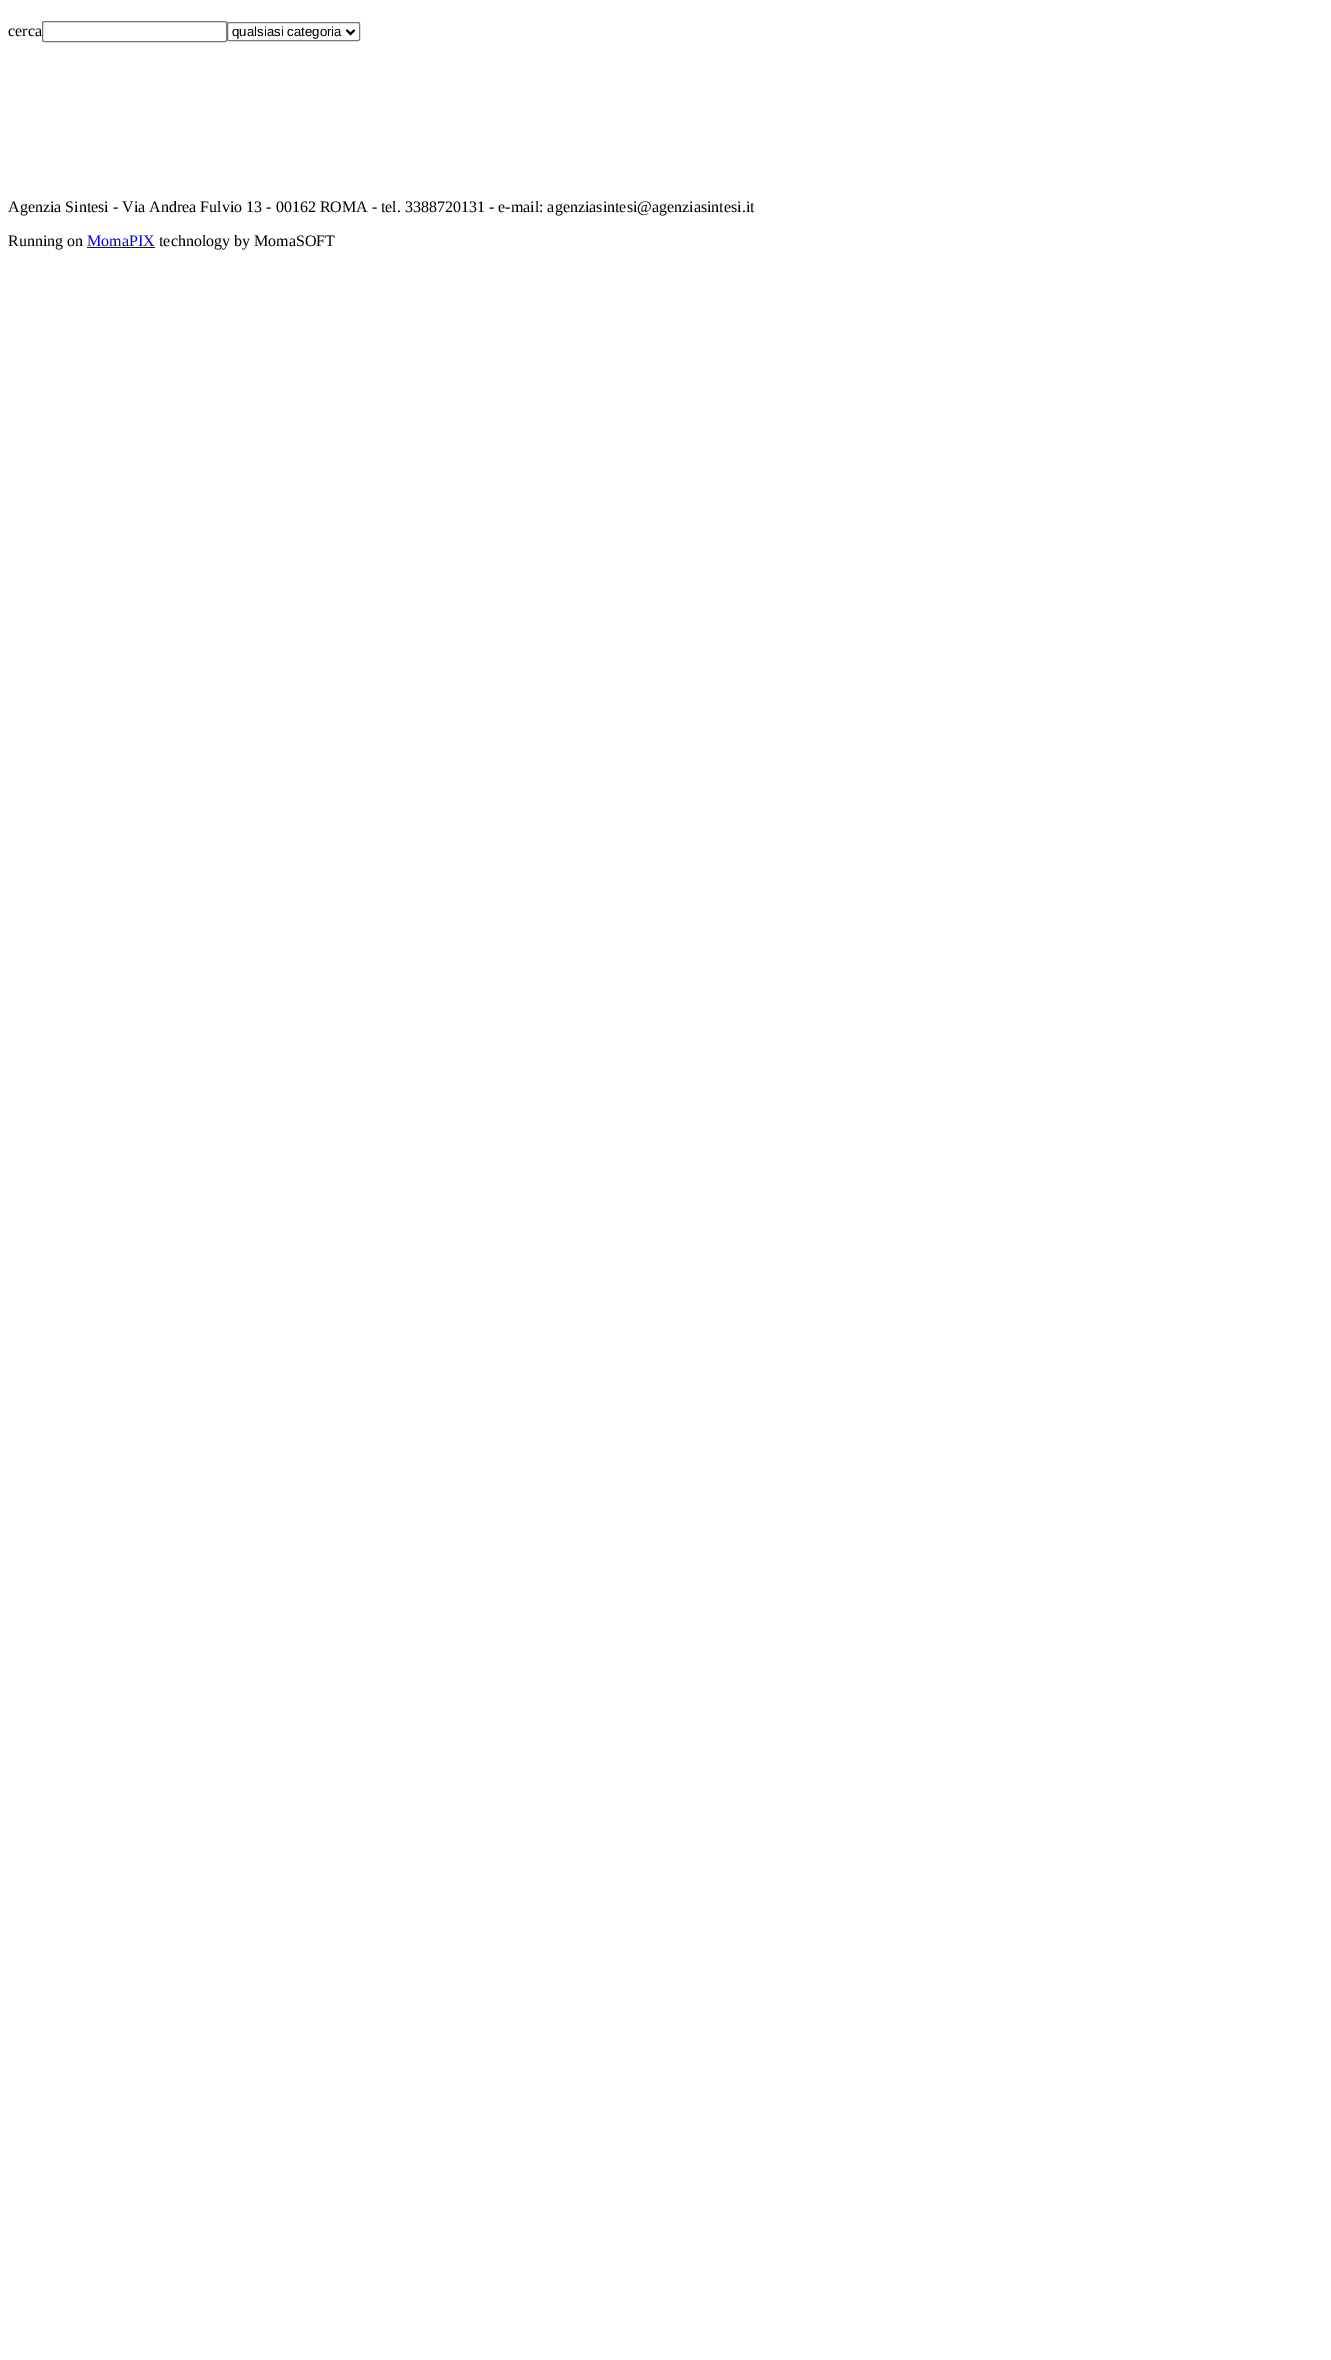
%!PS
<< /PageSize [1331 2360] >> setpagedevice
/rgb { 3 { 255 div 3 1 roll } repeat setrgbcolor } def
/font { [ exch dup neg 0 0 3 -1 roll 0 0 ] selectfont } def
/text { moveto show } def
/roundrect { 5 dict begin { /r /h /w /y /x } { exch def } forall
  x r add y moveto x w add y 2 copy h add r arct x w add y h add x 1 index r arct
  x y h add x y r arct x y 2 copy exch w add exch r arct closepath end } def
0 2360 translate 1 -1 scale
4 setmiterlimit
255 255 255 rgb
0 0 1331 2360 rectfill
118 118 118 rgb
42.5 21.5 184 20 1.5 roundrect stroke
227.5 22.5 132 18 1.5 roundrect stroke
0 0 0 rgb
2 setlinewidth
346.5 30 moveto 4 4 rlineto 4 -4 rlineto stroke
0 0 238 rgb
87 247 68 1 rectfill
/LiberationSerif-Regular 16 font
0 0 0 rgb
(cerca) 8 36 text
/LiberationSans-Regular 13.25 font
(qualsiasi categoria) 232 36 text
/LiberationSerif-Regular 16 font
(Agenzia Sintesi - Via Andrea Fulvio 13 - 00162 ROMA - tel. 3388720131 - e-mail: agenziasintesi@agenziasintesi.it) 8 212 text
(Running on) 8 246 text
0 0 238 rgb
(MomaPIX) 87 246 text
0 0 0 rgb
(technology by MomaSOFT) 159 246 text
showpage
